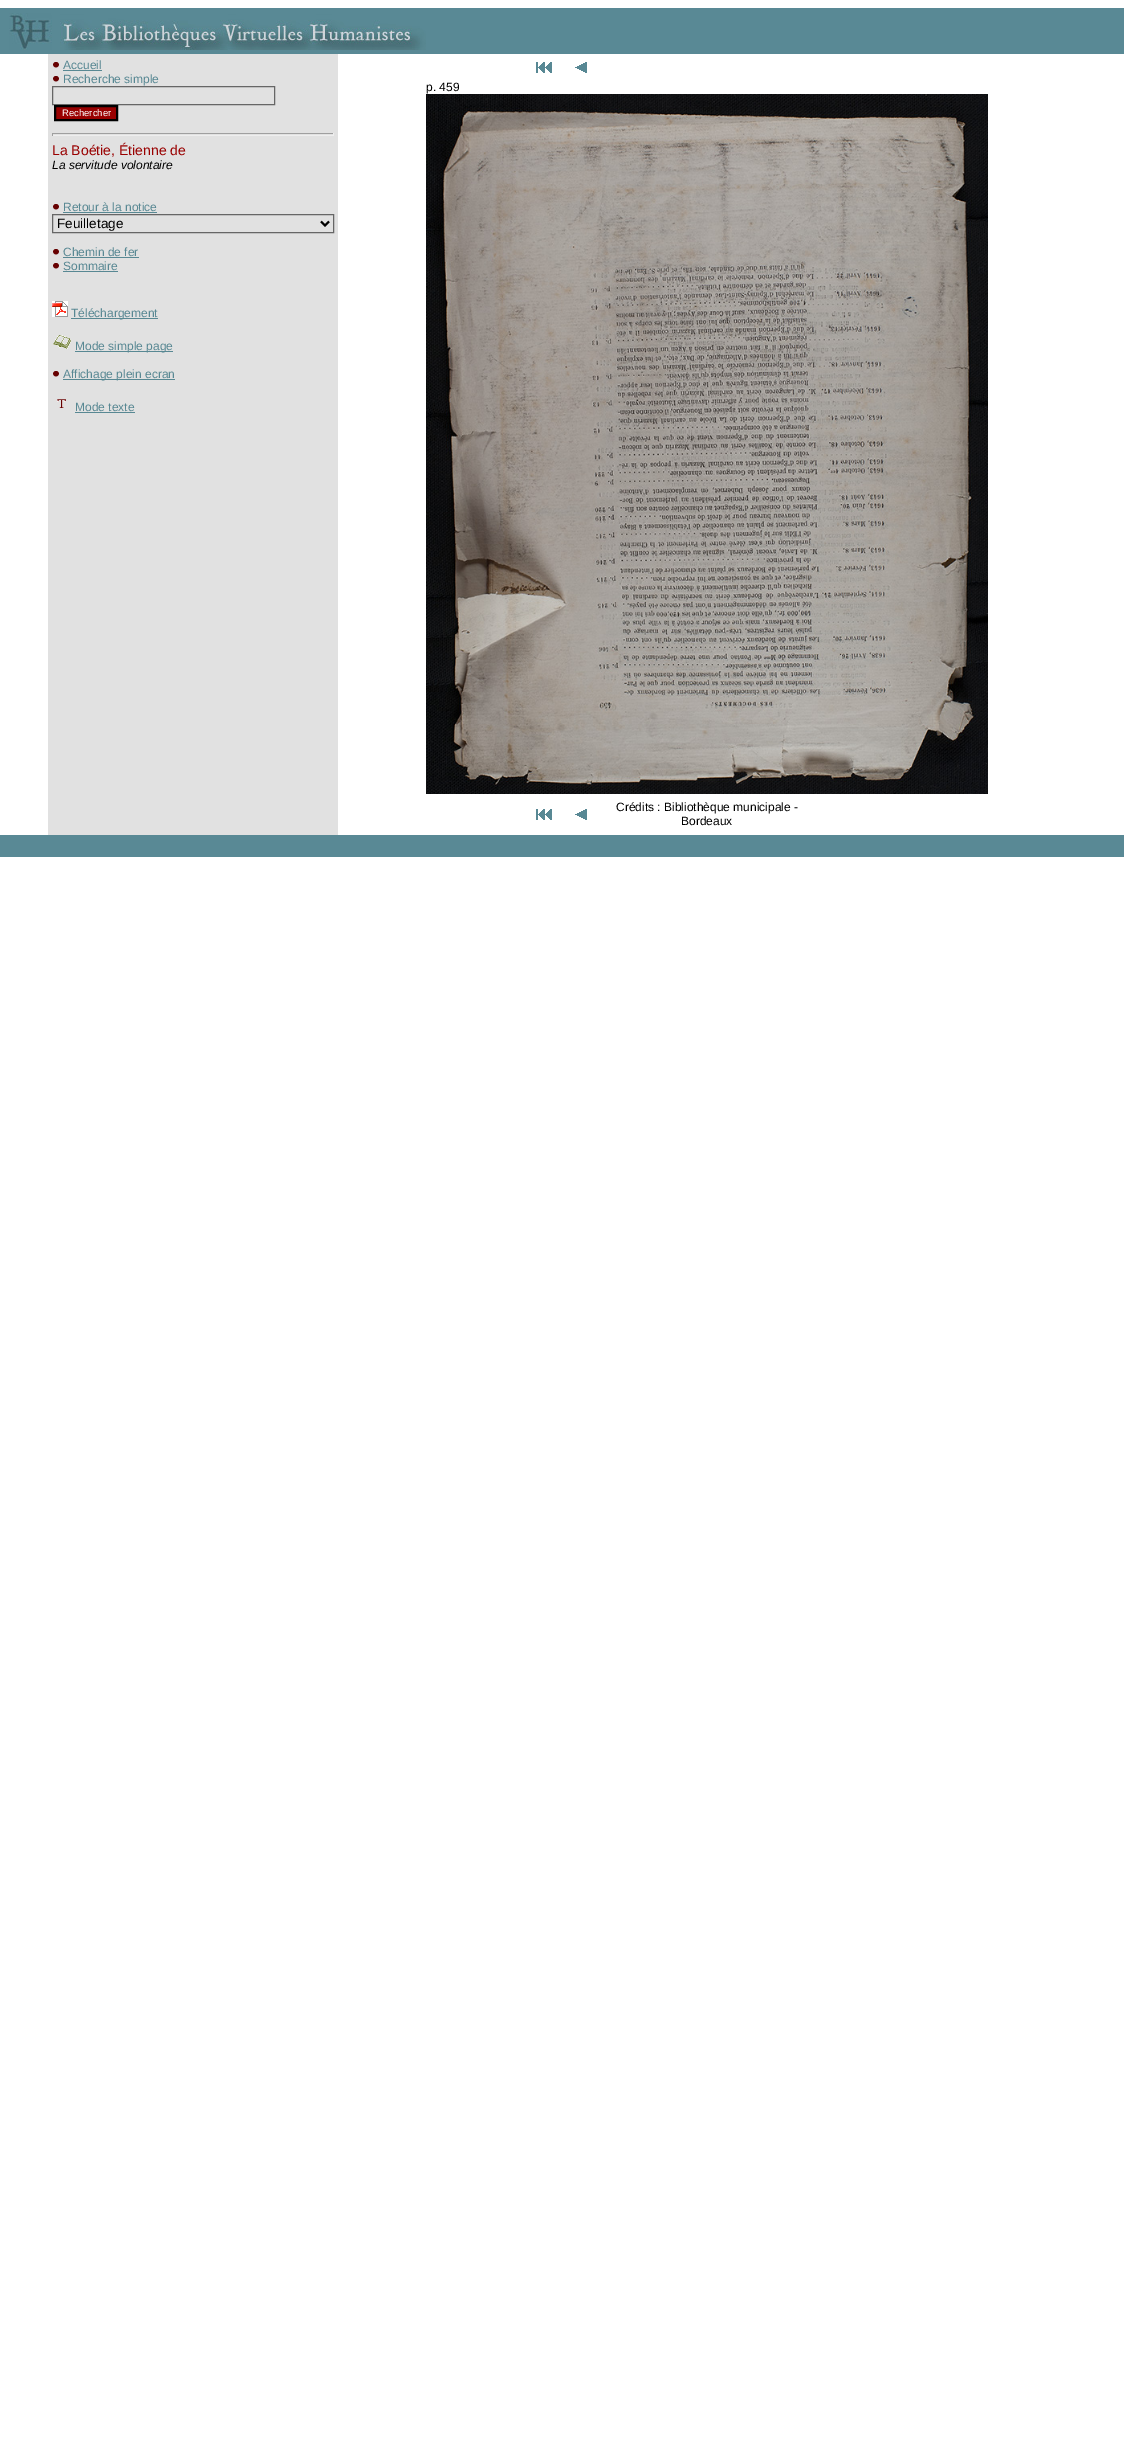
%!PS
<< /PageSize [1124 2439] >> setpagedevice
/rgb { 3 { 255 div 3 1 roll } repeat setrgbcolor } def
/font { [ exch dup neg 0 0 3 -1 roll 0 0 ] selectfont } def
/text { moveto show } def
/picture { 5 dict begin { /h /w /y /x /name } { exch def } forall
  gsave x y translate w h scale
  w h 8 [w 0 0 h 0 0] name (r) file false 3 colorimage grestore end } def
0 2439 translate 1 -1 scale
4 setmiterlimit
255 255 255 rgb
0 0 1124 2439 rectfill
89 137 149 rgb
0 8 1124 46 rectfill
(img_01.rgb) 9 13 417 37 picture
225 225 225 rgb
48 54 290 781 rectfill
(img_02.rgb) 53 62 7 7 picture
88 136 147 rgb
63 70 39 1 rectfill
(img_02.rgb) 53 76 7 7 picture
102 102 102 rgb
52.5 86.5 222 18 rectstroke
153 0 0 rgb
55 106 moveto 62 0 rlineto 0 14 rlineto -62 0 rlineto closepath gsave fill grestore
0 0 0 rgb
2 setlinewidth
stroke
159 159 159 rgb
52 133 282 1 rectfill
238 238 238 rgb
333 133 1 3 rectfill
52 135 282 1 rectfill
159 159 159 rgb
52 133 1 3 rectfill
(img_02.rgb) 53 204 7 7 picture
88 136 147 rgb
63 212 94 1 rectfill
102 102 102 rgb
1 setlinewidth
52.5 214.5 281 18 rectstroke
0 0 0 rgb
2 setlinewidth
321 221.5 moveto 4 4 rlineto 4 -4 rlineto stroke
(img_02.rgb) 53 249 7 7 picture
88 136 147 rgb
63 257 76 1 rectfill
(img_02.rgb) 53 263 7 7 picture
63 271 55 1 rectfill
(img_03.rgb) 52 301 16 16 picture
71 318 87 1 rectfill
(img_04.rgb) 53 335 18 14 picture
75 351 98 1 rectfill
(img_02.rgb) 53 371 7 7 picture
63 379 112 1 rectfill
(img_05.rgb) 57 399 9 9 picture
75 412 60 1 rectfill
(img_06.rgb) 536 62 16 11 picture
(img_07.rgb) 575 62 12 11 picture
(img_08.rgb) 426 94 562 700 picture
(img_06.rgb) 536 809 16 11 picture
(img_07.rgb) 575 809 12 11 picture
89 137 149 rgb
0 835 1124 22 rectfill
/LiberationSans-Regular 12 font
88 136 147 rgb
(Accueil) 63 69 text
(Recherche simple) 63 83 text
/LiberationSans-Regular 9.5 font
255 255 255 rgb
(Rechercher) 62 116 text
/LiberationSans-Regular 14 font
153 0 0 rgb
(La Boétie, Étienne de) 52 155 text
/LiberationSans-Italic 12 font
0 0 0 rgb
(La servitude volontaire) 52 169 text
/LiberationSans-Regular 12 font
88 136 147 rgb
(Retour à la notice) 63 211 text
/LiberationSans-Regular 13.5 font
0 0 0 rgb
(Feuilletage) 57 228 text
/LiberationSans-Regular 12 font
88 136 147 rgb
(Chemin de fer) 63 256 text
(Sommaire) 63 270 text
(Téléchargement) 71 317 text
(Mode simple page) 75 350 text
(Affichage plein ecran) 63 378 text
(Mode texte) 75 411 text
0 0 0 rgb
(p. 459) 426 91 text
(Crédits : Bibliothèque municipale -) 616 811 text
(Bordeaux) 681 825 text
showpage
